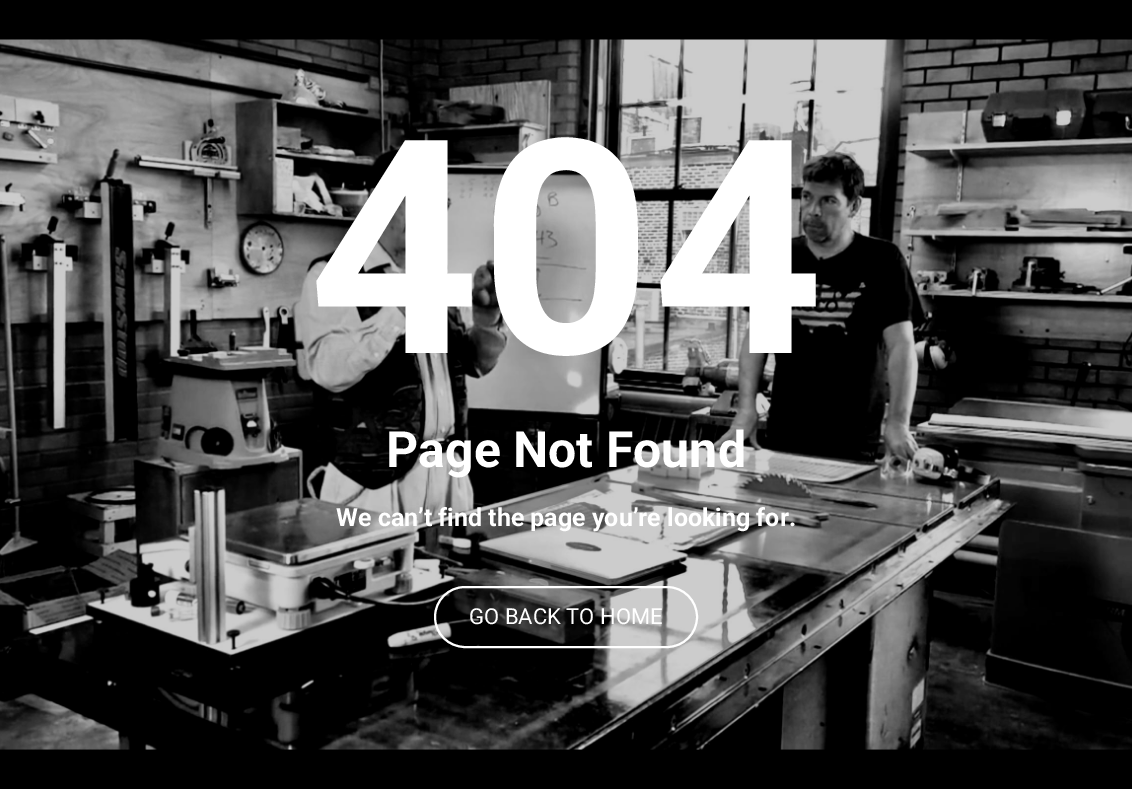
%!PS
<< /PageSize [1132 789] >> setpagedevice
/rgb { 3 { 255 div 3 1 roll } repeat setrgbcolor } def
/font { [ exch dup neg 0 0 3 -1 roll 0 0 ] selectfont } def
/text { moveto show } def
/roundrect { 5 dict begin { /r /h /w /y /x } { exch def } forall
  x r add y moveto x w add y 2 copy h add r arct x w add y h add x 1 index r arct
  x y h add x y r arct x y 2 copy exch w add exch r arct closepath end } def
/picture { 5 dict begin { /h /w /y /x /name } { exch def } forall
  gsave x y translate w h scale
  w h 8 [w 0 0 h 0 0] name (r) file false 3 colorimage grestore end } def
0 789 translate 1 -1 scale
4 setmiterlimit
0 0 0 rgb
0 0 1132 789 rectfill
(img_01.rgb) 0 39 1132 711 picture
255 255 255 rgb
2 setlinewidth
435 587 262 60 30 roundrect stroke
/Roboto-Bold 300 font
(404) 308 353 text
/Roboto-Bold 50 font
(Page Not Found) 386 467 text
/Roboto-Bold 25 font
(We can’t find the page you’re looking for.) 336 526 text
/Roboto-Regular 22 font
(GO BACK TO HOME) 469 624 text
showpage
